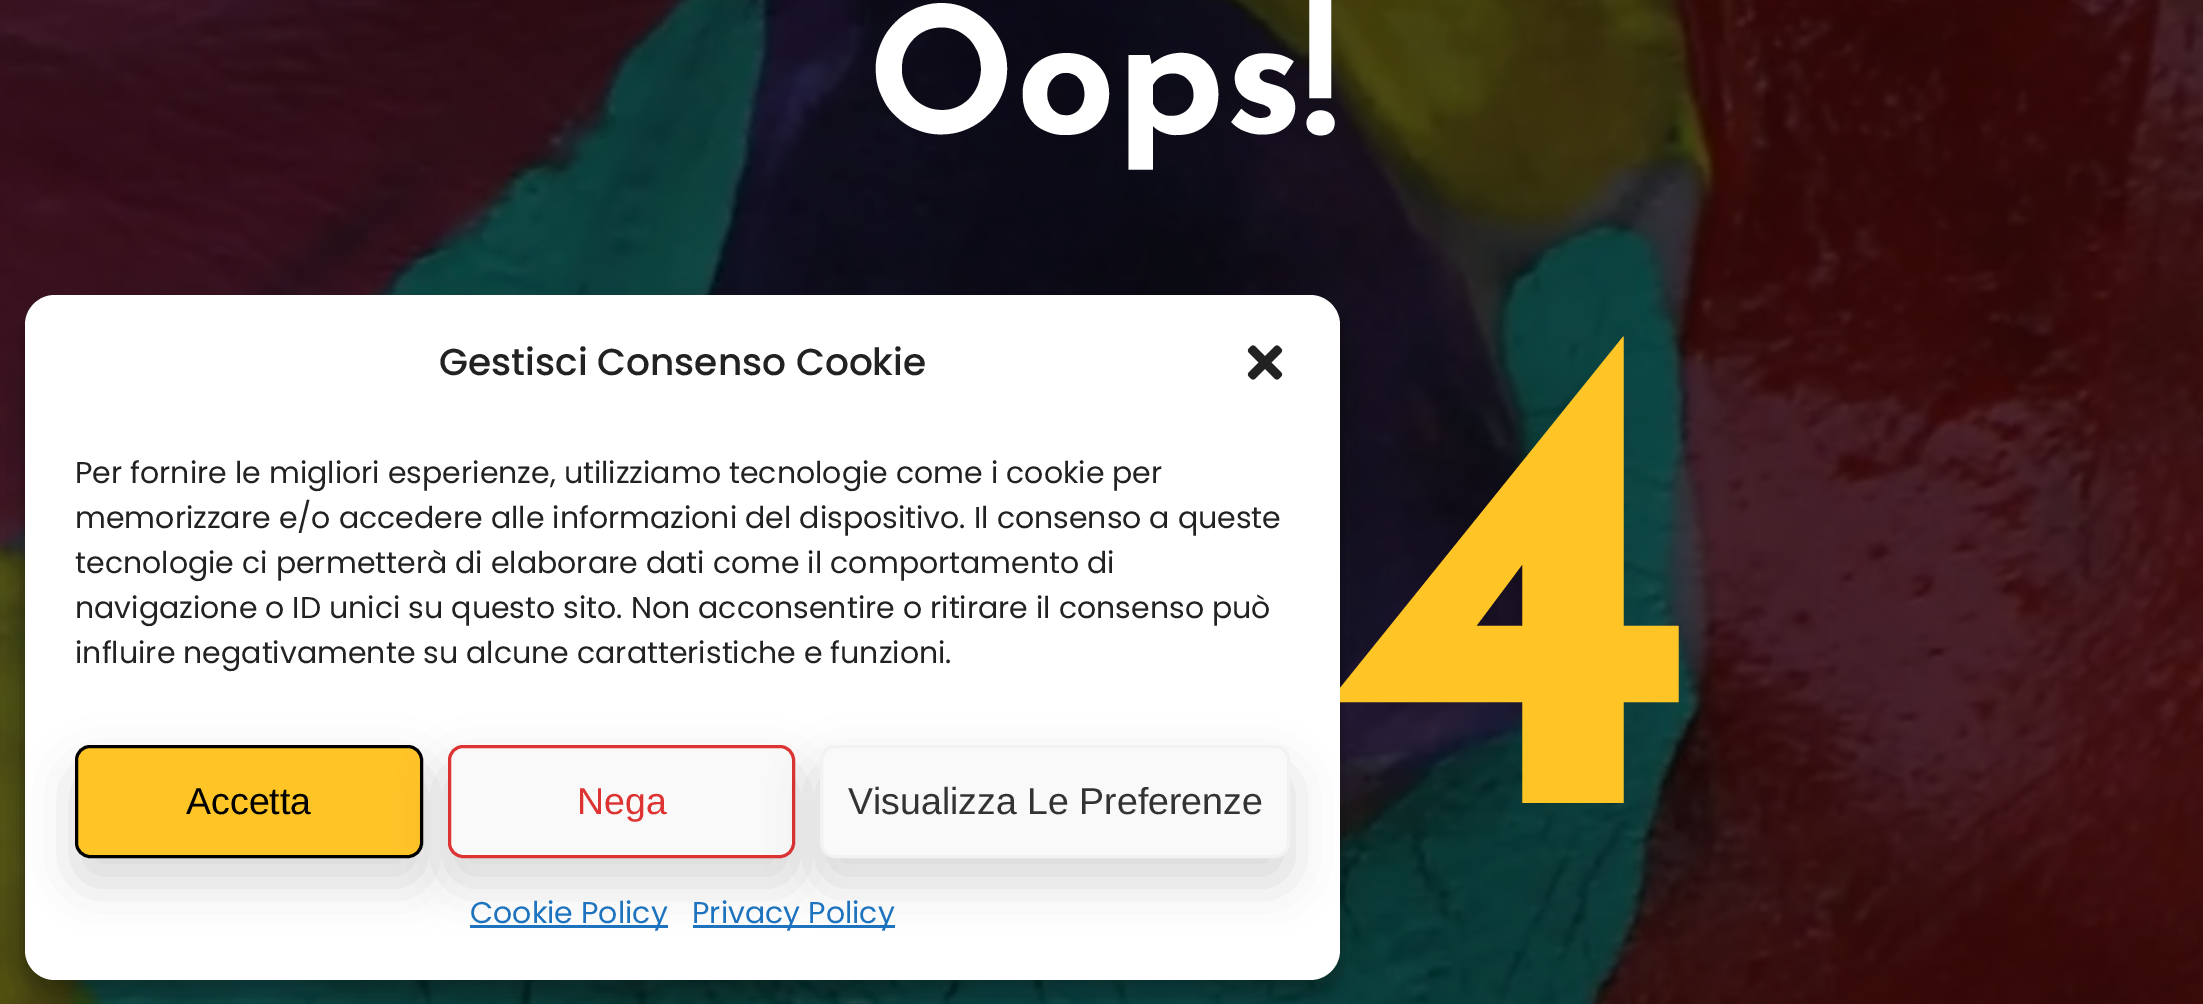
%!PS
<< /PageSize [2203 1004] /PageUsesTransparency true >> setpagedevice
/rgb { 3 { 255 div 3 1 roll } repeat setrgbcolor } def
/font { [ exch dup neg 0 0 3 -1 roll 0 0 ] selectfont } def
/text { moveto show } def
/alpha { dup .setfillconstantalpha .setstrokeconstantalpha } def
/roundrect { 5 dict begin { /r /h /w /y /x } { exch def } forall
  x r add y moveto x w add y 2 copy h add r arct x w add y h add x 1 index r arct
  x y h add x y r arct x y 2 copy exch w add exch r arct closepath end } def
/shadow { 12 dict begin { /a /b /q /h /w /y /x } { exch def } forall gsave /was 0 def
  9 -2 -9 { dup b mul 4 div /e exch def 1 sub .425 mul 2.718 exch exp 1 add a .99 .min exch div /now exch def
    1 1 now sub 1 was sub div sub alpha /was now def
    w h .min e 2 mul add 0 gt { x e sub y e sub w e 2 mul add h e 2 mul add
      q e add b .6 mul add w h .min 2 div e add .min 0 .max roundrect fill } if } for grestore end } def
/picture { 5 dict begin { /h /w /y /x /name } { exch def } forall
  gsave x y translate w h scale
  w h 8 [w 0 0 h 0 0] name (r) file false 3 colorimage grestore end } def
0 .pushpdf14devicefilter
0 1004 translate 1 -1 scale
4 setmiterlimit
255 255 255 rgb
0 0 2203 1004 rectfill
(img_01.rgb) 0 0 2203 1004 picture
0 0 0 rgb
25 310 1315 685 30 7.5 0.23 shadow
25 320 1315 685 30 25 0.19 shadow
/JosefinSans-Bold 175 font
255 255 255 rgb
(Oops!) 867 133 text
/JosefinSans-Bold 700 font
255 197 39 rgb
(4) 1322 803 text
255 255 255 rgb
25 295 1315 685 30 roundrect fill
/Poppins-Medium 37.5 font
34 34 34 rgb
(Gestisci Consenso Cookie) 439 375 text
(img_02.rgb) 1247 345 36 35 picture
/Poppins-Regular 30 font
(Per fornire le migliori esperienze, utilizziamo tecnologie come i cookie per) 75 483 text
(memorizzare e/o accedere alle informazioni del dispositivo. Il consenso a queste) 75 528 text
(tecnologie ci permetterà di elaborare dati come il comportamento di) 75 573 text
(navigazione o ID unici su questo sito. Non acconsentire o ritirare il consenso può) 75 618 text
(influire negativamente su alcune caratteristiche e funzioni.) 75 663 text
0 0 0 rgb
75 770 348 113 15 25 0.15 shadow
255 197 39 rgb
76.5 746.5 345 110 13.5 roundrect gsave fill grestore
0 0 0 rgb
3 setlinewidth
stroke
/LiberationSans-Regular 37.5 font
(Accetta) 186 814 text
448 770 347 113 15 25 0.15 shadow
249 249 249 rgb
449.5 746.5 344 110 13.5 roundrect gsave fill grestore
221 51 51 rgb
stroke
(Nega) 577 814 text
0 0 0 rgb
820 770 470 113 15 25 0.15 shadow
249 249 249 rgb
821.5 746.5 467 110 13.5 roundrect gsave fill grestore
242 242 242 rgb
stroke
51 51 51 rgb
(Visualizza Le Preferenze) 848 814 text
30 115 190 rgb
470 925 198 3 rectfill
/Poppins-Regular 30 font
(Cookie Policy) 470 923 text
693 925 202 3 rectfill
(Privacy Policy) 692 923 text
.poppdf14devicefilter showpage
